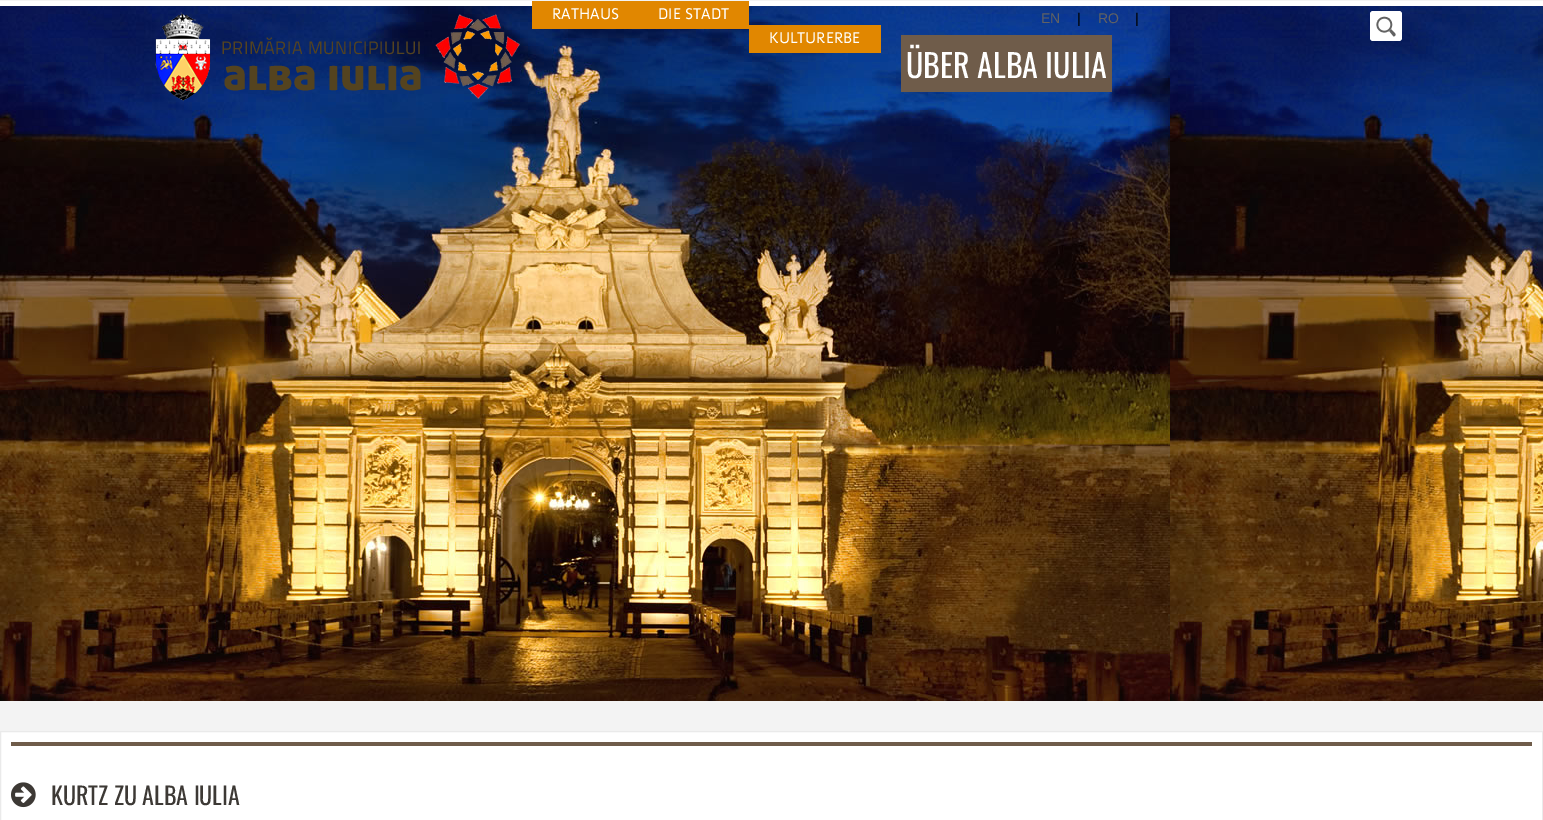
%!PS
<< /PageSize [1543 820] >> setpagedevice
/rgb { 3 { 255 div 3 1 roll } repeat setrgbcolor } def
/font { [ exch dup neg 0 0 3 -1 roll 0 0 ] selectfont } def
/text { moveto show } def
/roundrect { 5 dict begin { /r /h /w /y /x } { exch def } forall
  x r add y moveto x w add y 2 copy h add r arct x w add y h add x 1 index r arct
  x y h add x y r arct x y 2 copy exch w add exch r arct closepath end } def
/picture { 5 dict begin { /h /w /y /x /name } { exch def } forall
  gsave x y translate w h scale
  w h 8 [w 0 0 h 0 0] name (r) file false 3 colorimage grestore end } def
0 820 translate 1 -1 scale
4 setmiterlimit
243 243 243 rgb
0 0 1543 820 rectfill
255 255 255 rgb
0 1 1543 5 rectfill
(img_03.rgb) 0 6 1543 695 picture
225 135 0 rgb
532 1 217 28 rectfill
749 25 132 28 rectfill
(img_01.rgb) 155 12 365 89 picture
255 255 255 rgb
1370 11 32 30 3 roundrect fill
(img_02.rgb) 1376 16 20 21 picture
111 92 74 rgb
901 35 211 57 rectfill
255 255 255 rgb
0.5 731.5 moveto 1542 0 rlineto 0 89 rlineto -1542 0 rlineto closepath gsave fill grestore
234 234 234 rgb
stroke
111 92 74 rgb
11 742 1521 4 rectfill
(img_04.rgb) 11 782 25 26 picture
/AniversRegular-Regular 16 font
255 255 255 rgb
(RATHAUS) 552 19 text
(DIE STADT) 658 19 text
(KULTURERBE) 769 43 text
/LiberationSans-Regular 14 font
98 98 98 rgb
(EN) 1041 23 text
0 0 0 rgb
(|) 1077 23 text
98 98 98 rgb
(RO) 1098 23 text
0 0 0 rgb
(|) 1135 23 text
/Oswald-Regular 32 font
255 255 255 rgb
(ÜBER ALBA IULIA) 906 78 text
/Oswald-Regular 24 font
61 57 53 rgb
(KURTZ ZU ALBA IULIA) 51 805 text
showpage
